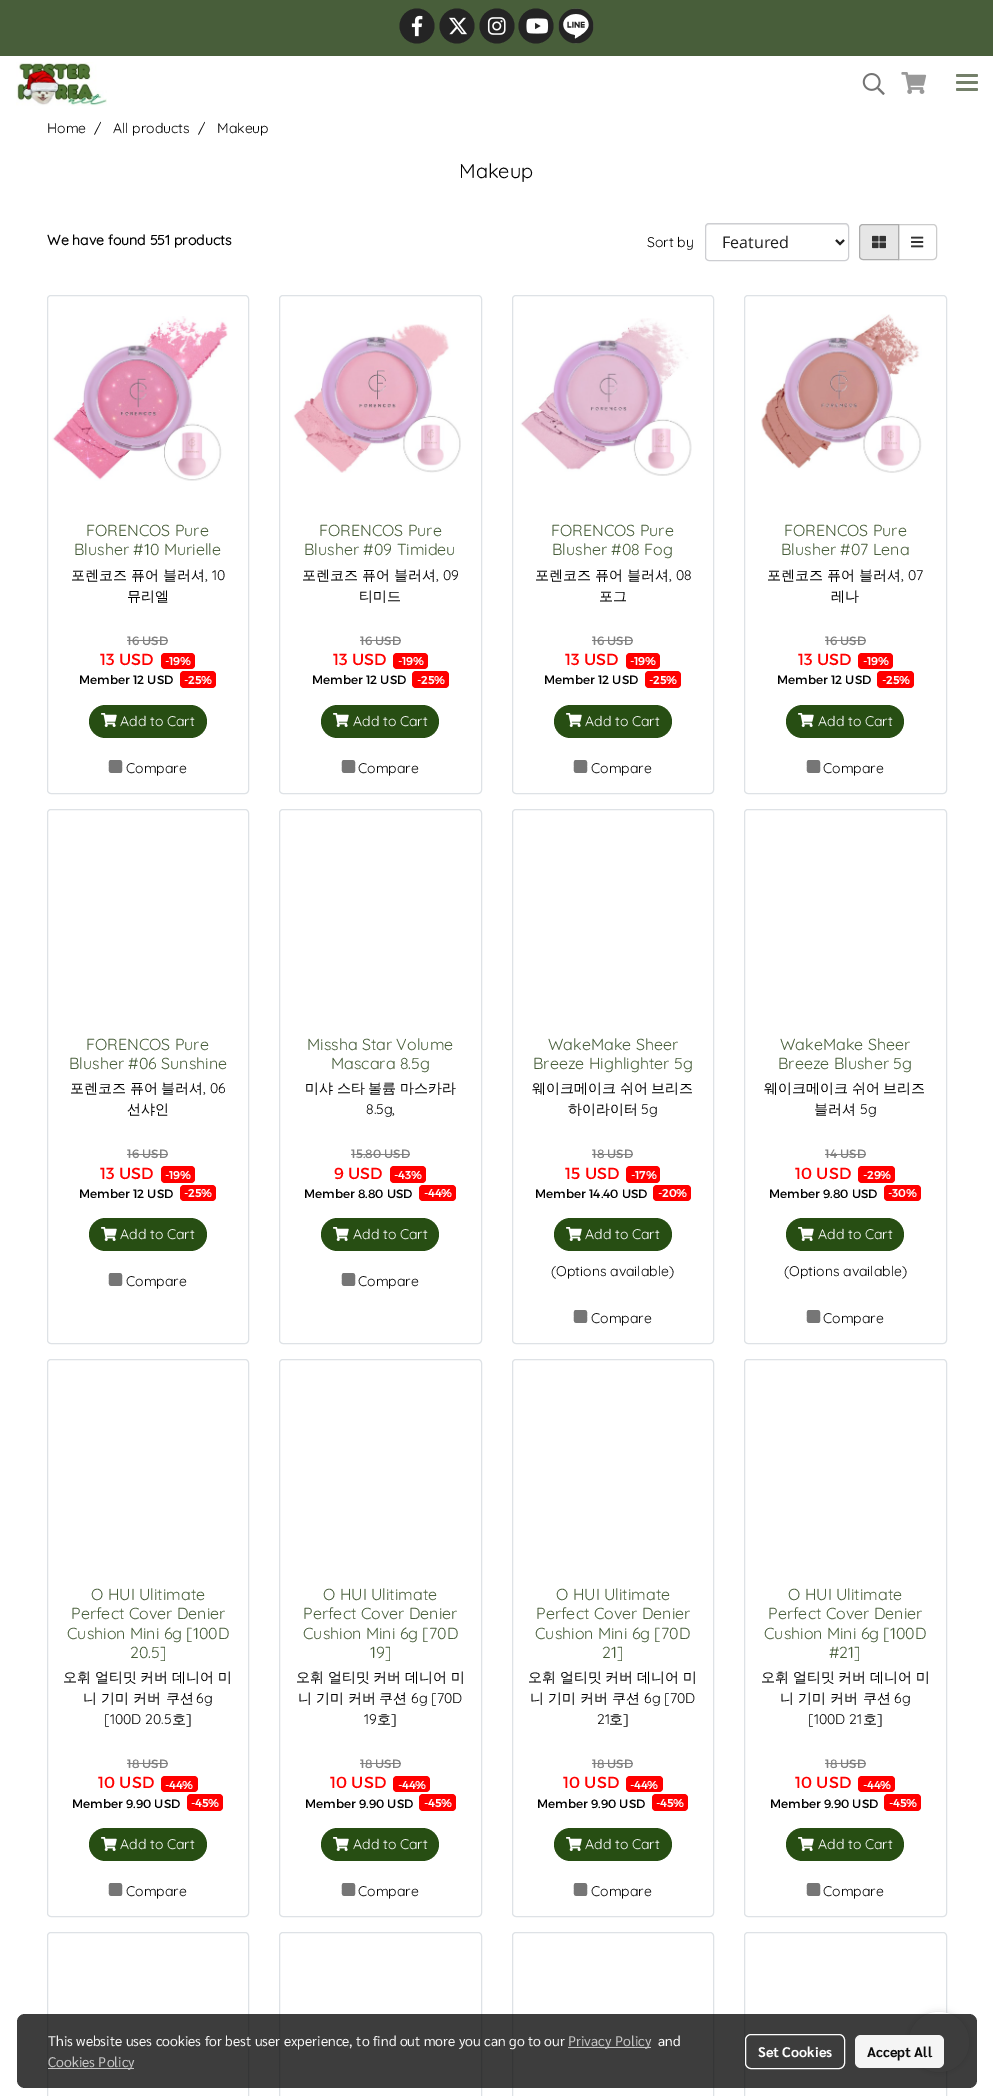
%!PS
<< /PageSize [993 2096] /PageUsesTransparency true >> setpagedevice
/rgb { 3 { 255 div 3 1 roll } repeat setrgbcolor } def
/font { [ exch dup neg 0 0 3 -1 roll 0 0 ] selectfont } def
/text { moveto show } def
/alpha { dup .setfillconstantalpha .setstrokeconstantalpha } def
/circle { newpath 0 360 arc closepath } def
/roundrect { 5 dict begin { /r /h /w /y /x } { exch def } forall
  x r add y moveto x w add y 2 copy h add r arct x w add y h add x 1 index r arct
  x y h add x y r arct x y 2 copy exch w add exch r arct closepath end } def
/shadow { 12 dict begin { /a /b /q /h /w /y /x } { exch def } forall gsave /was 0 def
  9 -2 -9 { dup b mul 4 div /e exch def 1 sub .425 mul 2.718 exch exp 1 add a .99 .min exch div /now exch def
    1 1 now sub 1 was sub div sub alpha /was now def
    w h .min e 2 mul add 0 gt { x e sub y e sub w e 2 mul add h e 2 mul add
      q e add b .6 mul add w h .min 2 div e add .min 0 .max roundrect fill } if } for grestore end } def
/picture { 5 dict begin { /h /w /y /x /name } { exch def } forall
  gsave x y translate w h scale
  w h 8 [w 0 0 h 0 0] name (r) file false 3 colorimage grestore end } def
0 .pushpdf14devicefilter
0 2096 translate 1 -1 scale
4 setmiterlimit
255 255 255 rgb
0 0 993 2096 rectfill
72 94 58 rgb
0 0 993 56 rectfill
36 36 36 rgb
417 8.5 moveto -9.5 0 -17.5 8 -17.5 17.5 rcurveto 0 9.5 8 17.5 17.5 17.5 rcurveto 9.5 0 17.5 -8 17.5 -17.5 rcurveto 0 -9.5 -8 -17.5 -17.5 -17.5 rcurveto closepath fill
(img_01.rgb) 411 15 12 22 picture
457 8.5 moveto -9.5 0 -17.5 8 -17.5 17.5 rcurveto 0 9.5 8 17.5 17.5 17.5 rcurveto 9.5 0 17.5 -8 17.5 -17.5 rcurveto 0 -9.5 -8 -17.5 -17.5 -17.5 rcurveto closepath fill
(img_02.rgb) 449 17 18 18 picture
497 8.5 moveto -9.5 0 -17.5 8 -17.5 17.5 rcurveto 0 9.5 8 17.5 17.5 17.5 rcurveto 9.5 0 17.5 -8 17.5 -17.5 rcurveto 0 -9.5 -8 -17.5 -17.5 -17.5 rcurveto closepath fill
(img_03.rgb) 487 17 19 18 picture
536 8.5 moveto -9.5 0 -17.5 8 -17.5 17.5 rcurveto 0 9.5 8 17.5 17.5 17.5 rcurveto 9.5 0 17.5 -8 17.5 -17.5 rcurveto 0 -9.5 -8 -17.5 -17.5 -17.5 rcurveto closepath fill
(img_04.rgb) 526 18 23 16 picture
576 8.5 moveto -9.5 0 -17.5 8 -17.5 17.5 rcurveto 0 9.5 8 17.5 17.5 17.5 rcurveto 9.5 0 17.5 -8 17.5 -17.5 rcurveto 0 -9.5 -8 -17.5 -17.5 -17.5 rcurveto closepath fill
(img_05.rgb) 558 8 36 36 picture
(img_06.rgb) 16 62 91 44 picture
(img_07.rgb) 862 73 23 22 picture
(img_08.rgb) 901 72 26 22 picture
116 128 106 rgb
956 81 22 3 1.5 roundrect fill
956 74 22 3 1.5 roundrect fill
956 88 22 3 1.5 roundrect fill
236 236 236 rgb
709 225 moveto 136 0 rlineto 2 0 3 1 3 3 rcurveto 0 -1 rlineto 0 -2 -1 -3 -3 -3 rcurveto -136 0 rlineto -2 0 -3 1 -3 3 rcurveto 0 1 rlineto 0 -2 1 -3 3 -3 rcurveto closepath fill
205 206 210 rgb
705.5 223.5 143 37 3.5 roundrect stroke
33 33 33 rgb
2 setlinewidth
836 240 moveto 4 4 rlineto 4 -4 rlineto stroke
204 204 204 rgb
1 setlinewidth
898.5 224.5 moveto 34.5 0 rlineto 2 0 3.5 1.5 3.5 3.5 rcurveto 0 28 rlineto 0 2 -1.5 3.5 -3.5 3.5 rcurveto -34.5 0 rlineto closepath stroke
230 230 230 rgb
863 224.5 moveto 35.5 0 rlineto 0 35 rlineto -35.5 0 rlineto -2 0 -3.5 -1.5 -3.5 -3.5 rcurveto 0 -28 rlineto 0 -2 1.5 -3.5 3.5 -3.5 rcurveto closepath gsave fill grestore
173 173 173 rgb
stroke
(img_09.rgb) 872 235 14 14 picture
(img_10.rgb) 911 236 13 12 picture
222 226 230 rgb
47.5 295.5 201 498 3.5 roundrect stroke
(img_11.rgb) 52 316 176 165 picture
128 128 128 rgb
127 640 41 1 rectfill
255 0 0 rgb
161 653 34 16 4 roundrect fill
180 671 36 17 4 roundrect fill
39 78 19 rgb
89 705 118 33 16.5 roundrect fill
(img_12.rgb) 101 713 16 14 picture
118 118 118 rgb
111 760 moveto 7.5 0 rlineto 4.5 0 3.5 2.5 3.5 6.5 rcurveto 0 2 1 6.5 -2 6.5 rcurveto -7.5 0 rlineto -4.5 0 -3.5 -2.5 -3.5 -6.5 rcurveto 0 -1.5 -1 -6.5 2 -6.5 rcurveto closepath fill
222 226 230 rgb
279.5 295.5 202 498 3.5 roundrect stroke
(img_13.rgb) 293 324 168 149 picture
128 128 128 rgb
360 640 41 1 rectfill
255 0 0 rgb
393 653 35 16 4 roundrect fill
412 671 37 17 4 roundrect fill
39 78 19 rgb
321 705 118 33 16.5 roundrect fill
(img_12.rgb) 333 713 16 14 picture
118 118 118 rgb
344 760 moveto 7.5 0 rlineto 4.5 0 3.5 2.5 3.5 6.5 rcurveto 0 2 1 6.5 -2 6.5 rcurveto -7.5 0 rlineto -4.5 0 -3.5 -2.5 -3.5 -6.5 rcurveto 0 -1.5 -1 -6.5 2 -6.5 rcurveto closepath fill
222 226 230 rgb
512.5 295.5 201 498 3.5 roundrect stroke
(img_14.rgb) 520 318 172 158 picture
128 128 128 rgb
592 640 41 1 rectfill
255 0 0 rgb
626 653 34 16 4 roundrect fill
645 671 36 17 4 roundrect fill
39 78 19 rgb
554 705 118 33 16.5 roundrect fill
(img_12.rgb) 566 713 16 14 picture
118 118 118 rgb
576 760 moveto 7.5 0 rlineto 4.5 0 3.5 2.5 3.5 6.5 rcurveto 0 2 1 6.5 -2 6.5 rcurveto -7.5 0 rlineto -4.5 0 -3.5 -2.5 -3.5 -6.5 rcurveto 0 -1.5 -1 -6.5 2 -6.5 rcurveto closepath fill
222 226 230 rgb
744.5 295.5 202 498 3.5 roundrect stroke
(img_15.rgb) 761 314 161 159 picture
128 128 128 rgb
825 640 41 1 rectfill
255 0 0 rgb
858 653 35 16 4 roundrect fill
877 671 37 17 4 roundrect fill
39 78 19 rgb
786 705 118 33 16.5 roundrect fill
(img_12.rgb) 798 713 16 14 picture
118 118 118 rgb
809 760 moveto 7.5 0 rlineto 4.5 0 3.5 2.5 3.5 6.5 rcurveto 0 2 1 6.5 -2 6.5 rcurveto -7.5 0 rlineto -4.5 0 -3.5 -2.5 -3.5 -6.5 rcurveto 0 -1.5 -1 -6.5 2 -6.5 rcurveto closepath fill
222 226 230 rgb
47.5 809.5 201 534 3.5 roundrect stroke
128 128 128 rgb
127 1154 41 1 rectfill
255 0 0 rgb
161 1166 34 17 4 roundrect fill
180 1185 36 16 4 roundrect fill
39 78 19 rgb
89 1218 118 33 16.5 roundrect fill
(img_12.rgb) 101 1227 16 14 picture
118 118 118 rgb
111 1273 moveto 7.5 0 rlineto 4.5 0 3.5 2.5 3.5 6.5 rcurveto 0 2 1 6.5 -2 6.5 rcurveto -7.5 0 rlineto -4.5 0 -3.5 -2.5 -3.5 -6.5 rcurveto 0 -1.5 -1 -6.5 2 -6.5 rcurveto closepath fill
222 226 230 rgb
279.5 809.5 202 534 3.5 roundrect stroke
128 128 128 rgb
351 1154 59 1 rectfill
255 0 0 rgb
390 1166 36 17 4 roundrect fill
419 1185 37 16 4 roundrect fill
39 78 19 rgb
321 1218 118 33 16.5 roundrect fill
(img_12.rgb) 333 1227 16 14 picture
118 118 118 rgb
344 1273 moveto 7.5 0 rlineto 4.5 0 3.5 2.5 3.5 6.5 rcurveto 0 2 1 6.5 -2 6.5 rcurveto -7.5 0 rlineto -4.5 0 -3.5 -2.5 -3.5 -6.5 rcurveto 0 -1.5 -1 -6.5 2 -6.5 rcurveto closepath fill
222 226 230 rgb
512.5 809.5 201 534 3.5 roundrect stroke
128 128 128 rgb
592 1154 41 1 rectfill
255 0 0 rgb
626 1166 34 17 4 roundrect fill
653 1185 38 16 4 roundrect fill
39 78 19 rgb
554 1218 118 33 16.5 roundrect fill
(img_12.rgb) 566 1227 16 14 picture
118 118 118 rgb
576 1310 moveto 7.5 0 rlineto 4.5 0 3.5 2.5 3.5 6.5 rcurveto 0 2 1 6.5 -2 6.5 rcurveto -7.5 0 rlineto -4.5 0 -3.5 -2.5 -3.5 -6.5 rcurveto 0 -1.5 -1 -6.5 2 -6.5 rcurveto closepath fill
222 226 230 rgb
744.5 809.5 202 534 3.5 roundrect stroke
128 128 128 rgb
825 1154 41 1 rectfill
255 0 0 rgb
858 1166 37 17 4 roundrect fill
884 1185 37 16 4 roundrect fill
39 78 19 rgb
786 1218 118 33 16.5 roundrect fill
(img_12.rgb) 798 1227 16 14 picture
118 118 118 rgb
809 1310 moveto 7.5 0 rlineto 4.5 0 3.5 2.5 3.5 6.5 rcurveto 0 2 1 6.5 -2 6.5 rcurveto -7.5 0 rlineto -4.5 0 -3.5 -2.5 -3.5 -6.5 rcurveto 0 -1.5 -1 -6.5 2 -6.5 rcurveto closepath fill
222 226 230 rgb
47.5 1359.5 201 557 3.5 roundrect stroke
128 128 128 rgb
127 1763 41 1 rectfill
255 0 0 rgb
161 1776 37 16 4 roundrect fill
187 1794 36 17 4 roundrect fill
39 78 19 rgb
89 1828 118 33 16.5 roundrect fill
(img_12.rgb) 101 1837 16 14 picture
118 118 118 rgb
111 1883 moveto 7.5 0 rlineto 4.5 0 3.5 2.5 3.5 6.5 rcurveto 0 2 1 6.5 -2 6.5 rcurveto -7.5 0 rlineto -4.5 0 -3.5 -2.5 -3.5 -6.5 rcurveto 0 -1.5 -1 -6.5 2 -6.5 rcurveto closepath fill
222 226 230 rgb
279.5 1359.5 202 557 3.5 roundrect stroke
128 128 128 rgb
360 1763 41 1 rectfill
255 0 0 rgb
393 1776 37 16 4 roundrect fill
419 1794 37 17 4 roundrect fill
39 78 19 rgb
321 1828 118 33 16.5 roundrect fill
(img_12.rgb) 333 1837 16 14 picture
118 118 118 rgb
344 1883 moveto 7.5 0 rlineto 4.5 0 3.5 2.5 3.5 6.5 rcurveto 0 2 1 6.5 -2 6.5 rcurveto -7.5 0 rlineto -4.5 0 -3.5 -2.5 -3.5 -6.5 rcurveto 0 -1.5 -1 -6.5 2 -6.5 rcurveto closepath fill
222 226 230 rgb
512.5 1359.5 201 557 3.5 roundrect stroke
128 128 128 rgb
592 1763 41 1 rectfill
255 0 0 rgb
626 1776 37 16 4 roundrect fill
652 1794 36 17 4 roundrect fill
39 78 19 rgb
554 1828 118 33 16.5 roundrect fill
(img_12.rgb) 566 1837 16 14 picture
118 118 118 rgb
576 1883 moveto 7.5 0 rlineto 4.5 0 3.5 2.5 3.5 6.5 rcurveto 0 2 1 6.5 -2 6.5 rcurveto -7.5 0 rlineto -4.5 0 -3.5 -2.5 -3.5 -6.5 rcurveto 0 -1.5 -1 -6.5 2 -6.5 rcurveto closepath fill
222 226 230 rgb
744.5 1359.5 202 557 3.5 roundrect stroke
128 128 128 rgb
825 1763 41 1 rectfill
255 0 0 rgb
858 1776 37 16 4 roundrect fill
884 1794 37 17 4 roundrect fill
39 78 19 rgb
786 1828 118 33 16.5 roundrect fill
(img_12.rgb) 798 1837 16 14 picture
118 118 118 rgb
809 1883 moveto 7.5 0 rlineto 4.5 0 3.5 2.5 3.5 6.5 rcurveto 0 2 1 6.5 -2 6.5 rcurveto -7.5 0 rlineto -4.5 0 -3.5 -2.5 -3.5 -6.5 rcurveto 0 -1.5 -1 -6.5 2 -6.5 rcurveto closepath fill
222 226 230 rgb
47.5 1932.5 201 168 3.5 roundrect stroke
279.5 1932.5 202 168 3.5 roundrect stroke
512.5 1932.5 201 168 3.5 roundrect stroke
744.5 1932.5 202 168 3.5 roundrect stroke
0 0 0 rgb
909 2012 60 60 30 3.5 0.14 shadow
255 255 255 rgb
939 2042 30 circle fill
0.76 alpha
0 0 0 rgb
17 2014 960 74 8 roundrect fill
1 alpha
197 197 197 rgb
568 2047 83 1 rectfill
48 2068 86 1 rectfill
255 255 255 rgb
745.5 2034.5 99 34 5.5 roundrect stroke
0.95 alpha
855 2035 89 33 6 roundrect fill
/Quicksand-Light 14 font
1 alpha
0 0 0 rgb
(Home) 47 133 text
(/) 94 133 text
(All products) 113 133 text
(/) 198 133 text
(Makeup) 217 133 text
/Quicksand-Light 20 font
(Makeup) 459 178 text
/Quicksand-Bold 14 font
(We have found 551 products) 47 245 text
/Quicksand-Light 14 font
(Sort by) 647 247 text
/OpenSans-Regular 16 font
33 33 33 rgb
(Featured) 722 248 text
/Quicksand-Light 16 font
72 94 58 rgb
(FORENCOS Pure) 86 536 text
(Blusher #10 Murielle) 74 555 text
/WenQuanYiZenHei-Medium 14 font
0 0 0 rgb
(포렌코즈 퓨어 블러셔) 71 580 text
/Quicksand-Light 14 font
(, 10) 205 580 text
/WenQuanYiZenHei-Medium 14 font
(뮤리엘) 127 601 text
/Montserrat-Regular 12 font
128 128 128 rgb
(16 USD) 127 645 text
/Montserrat-Regular 16 font
255 0 0 rgb
(13 USD) 100 665 text
/Montserrat-Bold 11 font
255 255 255 rgb
(-19%) 165 665 text
/Montserrat-Regular 12 font
0 0 0 rgb
(Member 12 USD) 79 684 text
/Montserrat-Bold 11 font
255 255 255 rgb
(-25%) 184 684 text
/Quicksand-Light 14 font
(Add to Cart) 120 726 text
0 0 0 rgb
(Compare) 126 773 text
/Quicksand-Light 16 font
72 94 58 rgb
(FORENCOS Pure) 319 536 text
(Blusher #09 Timideu) 304 555 text
/WenQuanYiZenHei-Medium 14 font
0 0 0 rgb
(포렌코즈 퓨어 블러셔) 302 580 text
/Quicksand-Light 14 font
(, 09) 436 580 text
/WenQuanYiZenHei-Medium 14 font
(티미드) 359 601 text
/Montserrat-Regular 12 font
128 128 128 rgb
(16 USD) 360 645 text
/Montserrat-Regular 16 font
255 0 0 rgb
(13 USD) 333 665 text
/Montserrat-Bold 11 font
255 255 255 rgb
(-19%) 398 665 text
/Montserrat-Regular 12 font
0 0 0 rgb
(Member 12 USD) 312 684 text
/Montserrat-Bold 11 font
255 255 255 rgb
(-25%) 417 684 text
/Quicksand-Light 14 font
(Add to Cart) 353 726 text
0 0 0 rgb
(Compare) 358 773 text
/Quicksand-Light 16 font
72 94 58 rgb
(FORENCOS Pure) 551 536 text
(Blusher #08 Fog) 552 555 text
/WenQuanYiZenHei-Medium 14 font
0 0 0 rgb
(포렌코즈 퓨어 블러셔) 535 580 text
/Quicksand-Light 14 font
(, 08) 669 580 text
/WenQuanYiZenHei-Medium 14 font
(포그) 599 601 text
/Montserrat-Regular 12 font
128 128 128 rgb
(16 USD) 592 645 text
/Montserrat-Regular 16 font
255 0 0 rgb
(13 USD) 565 665 text
/Montserrat-Bold 11 font
255 255 255 rgb
(-19%) 630 665 text
/Montserrat-Regular 12 font
0 0 0 rgb
(Member 12 USD) 544 684 text
/Montserrat-Bold 11 font
255 255 255 rgb
(-25%) 649 684 text
/Quicksand-Light 14 font
(Add to Cart) 585 726 text
0 0 0 rgb
(Compare) 591 773 text
/Quicksand-Light 16 font
72 94 58 rgb
(FORENCOS Pure) 784 536 text
(Blusher #07 Lena) 781 555 text
/WenQuanYiZenHei-Medium 14 font
0 0 0 rgb
(포렌코즈) 767 580 text
(퓨어) 827 580 text
(블러셔) 859 580 text
/Quicksand-Light 14 font
(, 07) 901 580 text
/WenQuanYiZenHei-Medium 14 font
(레나) 831 601 text
/Montserrat-Regular 12 font
128 128 128 rgb
(16 USD) 825 645 text
/Montserrat-Regular 16 font
255 0 0 rgb
(13 USD) 798 665 text
/Montserrat-Bold 11 font
255 255 255 rgb
(-19%) 863 665 text
/Montserrat-Regular 12 font
0 0 0 rgb
(Member 12 USD) 777 684 text
/Montserrat-Bold 11 font
255 255 255 rgb
(-25%) 882 684 text
/Quicksand-Light 14 font
(Add to Cart) 818 726 text
0 0 0 rgb
(Compare) 823 773 text
/Quicksand-Light 16 font
72 94 58 rgb
(FORENCOS Pure) 86 1050 text
(Blusher #06 Sunshine) 69 1069 text
/WenQuanYiZenHei-Medium 14 font
0 0 0 rgb
(포렌코즈) 70 1093 text
(퓨어) 130 1093 text
(블러셔) 161 1093 text
/Quicksand-Light 14 font
(, 06) 203 1093 text
/WenQuanYiZenHei-Medium 14 font
(선샤인) 127 1114 text
/Montserrat-Regular 12 font
128 128 128 rgb
(16 USD) 127 1158 text
/Montserrat-Regular 16 font
255 0 0 rgb
(13 USD) 100 1179 text
/Montserrat-Bold 11 font
255 255 255 rgb
(-19%) 165 1179 text
/Montserrat-Regular 12 font
0 0 0 rgb
(Member 12 USD) 79 1198 text
/Montserrat-Bold 11 font
255 255 255 rgb
(-25%) 184 1197 text
/Quicksand-Light 14 font
(Add to Cart) 120 1239 text
0 0 0 rgb
(Compare) 126 1286 text
/Quicksand-Light 16 font
72 94 58 rgb
(Missha Star Volume) 307 1050 text
(Mascara 8.5g) 331 1069 text
/WenQuanYiZenHei-Medium 14 font
0 0 0 rgb
305 1093 moveto -0.5 0 32 (미샤 스타 볼륨 마스카라) widthshow
/Quicksand-Light 14 font
(8.5g,) 366 1114 text
/Montserrat-Regular 12 font
128 128 128 rgb
(15.80 USD) 351 1158 text
/Montserrat-Regular 16 font
255 0 0 rgb
(9 USD) 334 1179 text
/Montserrat-Bold 11 font
255 255 255 rgb
(-43%) 394 1179 text
/Montserrat-Regular 12 font
0 0 0 rgb
(Member 8.80 USD) 304 1198 text
/Montserrat-Bold 11 font
255 255 255 rgb
(-44%) 424 1197 text
/Quicksand-Light 14 font
(Add to Cart) 353 1239 text
0 0 0 rgb
(Compare) 358 1286 text
/Quicksand-Light 16 font
72 94 58 rgb
(WakeMake Sheer) 548 1050 text
(Breeze Highlighter 5g) 533 1069 text
/WenQuanYiZenHei-Medium 14 font
0 0 0 rgb
532 1093 moveto -0.5 0 32 (웨이크메이크 쉬어 브리즈) widthshow
(하이라이터) 568 1114 text
/Quicksand-Light 14 font
(5g) 641 1114 text
/Montserrat-Regular 12 font
128 128 128 rgb
(18 USD) 592 1158 text
/Montserrat-Regular 16 font
255 0 0 rgb
(15 USD) 565 1179 text
/Montserrat-Bold 11 font
255 255 255 rgb
(-17%) 631 1179 text
/Montserrat-Regular 12 font
0 0 0 rgb
(Member 14.40 USD) 535 1198 text
/Montserrat-Bold 11 font
255 255 255 rgb
(-20%) 658 1197 text
/Quicksand-Light 14 font
(Add to Cart) 585 1239 text
0 0 0 rgb
(\(Options available\)) 551 1276 text
(Compare) 591 1323 text
/Quicksand-Light 16 font
72 94 58 rgb
(WakeMake Sheer) 780 1050 text
(Breeze Blusher 5g) 778 1069 text
/WenQuanYiZenHei-Medium 14 font
0 0 0 rgb
764 1093 moveto -0.5 0 32 (웨이크메이크 쉬어 브리즈) widthshow
(블러셔) 814 1114 text
/Quicksand-Light 14 font
(5g) 860 1114 text
/Montserrat-Regular 12 font
128 128 128 rgb
(14 USD) 825 1158 text
/Montserrat-Regular 16 font
255 0 0 rgb
(10 USD) 795 1179 text
/Montserrat-Bold 11 font
255 255 255 rgb
(-29%) 863 1179 text
/Montserrat-Regular 12 font
0 0 0 rgb
(Member 9.80 USD) 769 1198 text
/Montserrat-Bold 11 font
255 255 255 rgb
(-30%) 888 1197 text
/Quicksand-Light 14 font
(Add to Cart) 818 1239 text
0 0 0 rgb
(\(Options available\)) 784 1276 text
(Compare) 823 1323 text
/Quicksand-Light 16 font
72 94 58 rgb
(O HUI Ulitimate) 91 1600 text
(Perfect Cover Denier) 71 1619 text
(Cushion Mini 6g [100D) 67 1639 text
(20.5]) 130 1658 text
/WenQuanYiZenHei-Medium 14 font
0 0 0 rgb
63 1682 moveto -0.5 0 32 (오휘 얼티밋 커버 데니어 미) widthshow
(니 기미 커버 쿠션) 83 1703 text
/Quicksand-Light 14 font
(6g) 196 1703 text
([100D 20.5) 104 1724 text
/WenQuanYiZenHei-Medium 14 font
(호) 172 1724 text
/Quicksand-Light 14 font
(]) 186 1724 text
/Montserrat-Regular 12 font
128 128 128 rgb
(18 USD) 127 1768 text
/Montserrat-Regular 16 font
255 0 0 rgb
(10 USD) 98 1788 text
/Montserrat-Bold 11 font
255 255 255 rgb
(-44%) 165 1789 text
/Montserrat-Regular 12 font
0 0 0 rgb
(Member 9.90 USD) 72 1808 text
/Montserrat-Bold 11 font
255 255 255 rgb
(-45%) 191 1807 text
/Quicksand-Light 14 font
(Add to Cart) 120 1849 text
0 0 0 rgb
(Compare) 126 1896 text
/Quicksand-Light 16 font
72 94 58 rgb
(O HUI Ulitimate) 323 1600 text
(Perfect Cover Denier) 303 1619 text
(Cushion Mini 6g [70D) 303 1639 text
(19]) 370 1658 text
/WenQuanYiZenHei-Medium 14 font
0 0 0 rgb
296 1682 moveto -0.5 0 32 (오휘 얼티밋 커버 데니어 미) widthshow
(니) 298 1703 text
(기미) 316 1703 text
(커버) 348 1703 text
(쿠션) 379 1703 text
/Quicksand-Light 14 font
(6g [70D) 411 1703 text
(19) 364 1724 text
/WenQuanYiZenHei-Medium 14 font
(호) 377 1724 text
/Quicksand-Light 14 font
(]) 391 1724 text
/Montserrat-Regular 12 font
128 128 128 rgb
(18 USD) 360 1768 text
/Montserrat-Regular 16 font
255 0 0 rgb
(10 USD) 330 1788 text
/Montserrat-Bold 11 font
255 255 255 rgb
(-44%) 398 1789 text
/Montserrat-Regular 12 font
0 0 0 rgb
(Member 9.90 USD) 305 1808 text
/Montserrat-Bold 11 font
255 255 255 rgb
(-45%) 424 1807 text
/Quicksand-Light 14 font
(Add to Cart) 353 1849 text
0 0 0 rgb
(Compare) 358 1896 text
/Quicksand-Light 16 font
72 94 58 rgb
(O HUI Ulitimate) 556 1600 text
(Perfect Cover Denier) 536 1619 text
(Cushion Mini 6g [70D) 535 1639 text
(21]) 602 1658 text
/WenQuanYiZenHei-Medium 14 font
0 0 0 rgb
528 1682 moveto -0.5 0 32 (오휘 얼티밋 커버 데니어 미) widthshow
(니) 530 1703 text
(기미) 548 1703 text
(커버) 580 1703 text
(쿠션) 612 1703 text
/Quicksand-Light 14 font
(6g [70D) 644 1703 text
(21) 597 1724 text
/WenQuanYiZenHei-Medium 14 font
(호) 609 1724 text
/Quicksand-Light 14 font
(]) 623 1724 text
/Montserrat-Regular 12 font
128 128 128 rgb
(18 USD) 592 1768 text
/Montserrat-Regular 16 font
255 0 0 rgb
(10 USD) 563 1788 text
/Montserrat-Bold 11 font
255 255 255 rgb
(-44%) 630 1789 text
/Montserrat-Regular 12 font
0 0 0 rgb
(Member 9.90 USD) 537 1808 text
/Montserrat-Bold 11 font
255 255 255 rgb
(-45%) 656 1807 text
/Quicksand-Light 14 font
(Add to Cart) 585 1849 text
0 0 0 rgb
(Compare) 591 1896 text
/Quicksand-Light 16 font
72 94 58 rgb
(O HUI Ulitimate) 788 1600 text
(Perfect Cover Denier) 768 1619 text
(Cushion Mini 6g [100D) 764 1639 text
(#21]) 829 1658 text
/WenQuanYiZenHei-Medium 14 font
0 0 0 rgb
761 1682 moveto -0.5 0 32 (오휘 얼티밋 커버 데니어 미) widthshow
(니 기미 커버 쿠션) 780 1703 text
/Quicksand-Light 14 font
(6g) 894 1703 text
([100D 21) 808 1724 text
/WenQuanYiZenHei-Medium 14 font
(호) 863 1724 text
/Quicksand-Light 14 font
(]) 877 1724 text
/Montserrat-Regular 12 font
128 128 128 rgb
(18 USD) 825 1768 text
/Montserrat-Regular 16 font
255 0 0 rgb
(10 USD) 795 1788 text
/Montserrat-Bold 11 font
255 255 255 rgb
(-44%) 863 1789 text
/Montserrat-Regular 12 font
0 0 0 rgb
(Member 9.90 USD) 770 1808 text
/Montserrat-Bold 11 font
255 255 255 rgb
(-45%) 889 1807 text
/Quicksand-Light 14 font
(Add to Cart) 818 1849 text
0 0 0 rgb
(Compare) 823 1896 text
/Sarabun-Regular 14 font
245 245 245 rgb
(This website uses cookies for best user experience, to find out more you can go to our) 48 2046 text
197 197 197 rgb
(Privacy Policy) 568 2046 text
255 255 255 rgb
(and) 658 2046 text
197 197 197 rgb
(Cookies Policy) 48 2067 text
/Sarabun-Bold 14 font
255 255 255 rgb
(Set Cookies) 758 2057 text
12 12 12 rgb
(Accept All) 867 2057 text
.poppdf14devicefilter showpage
